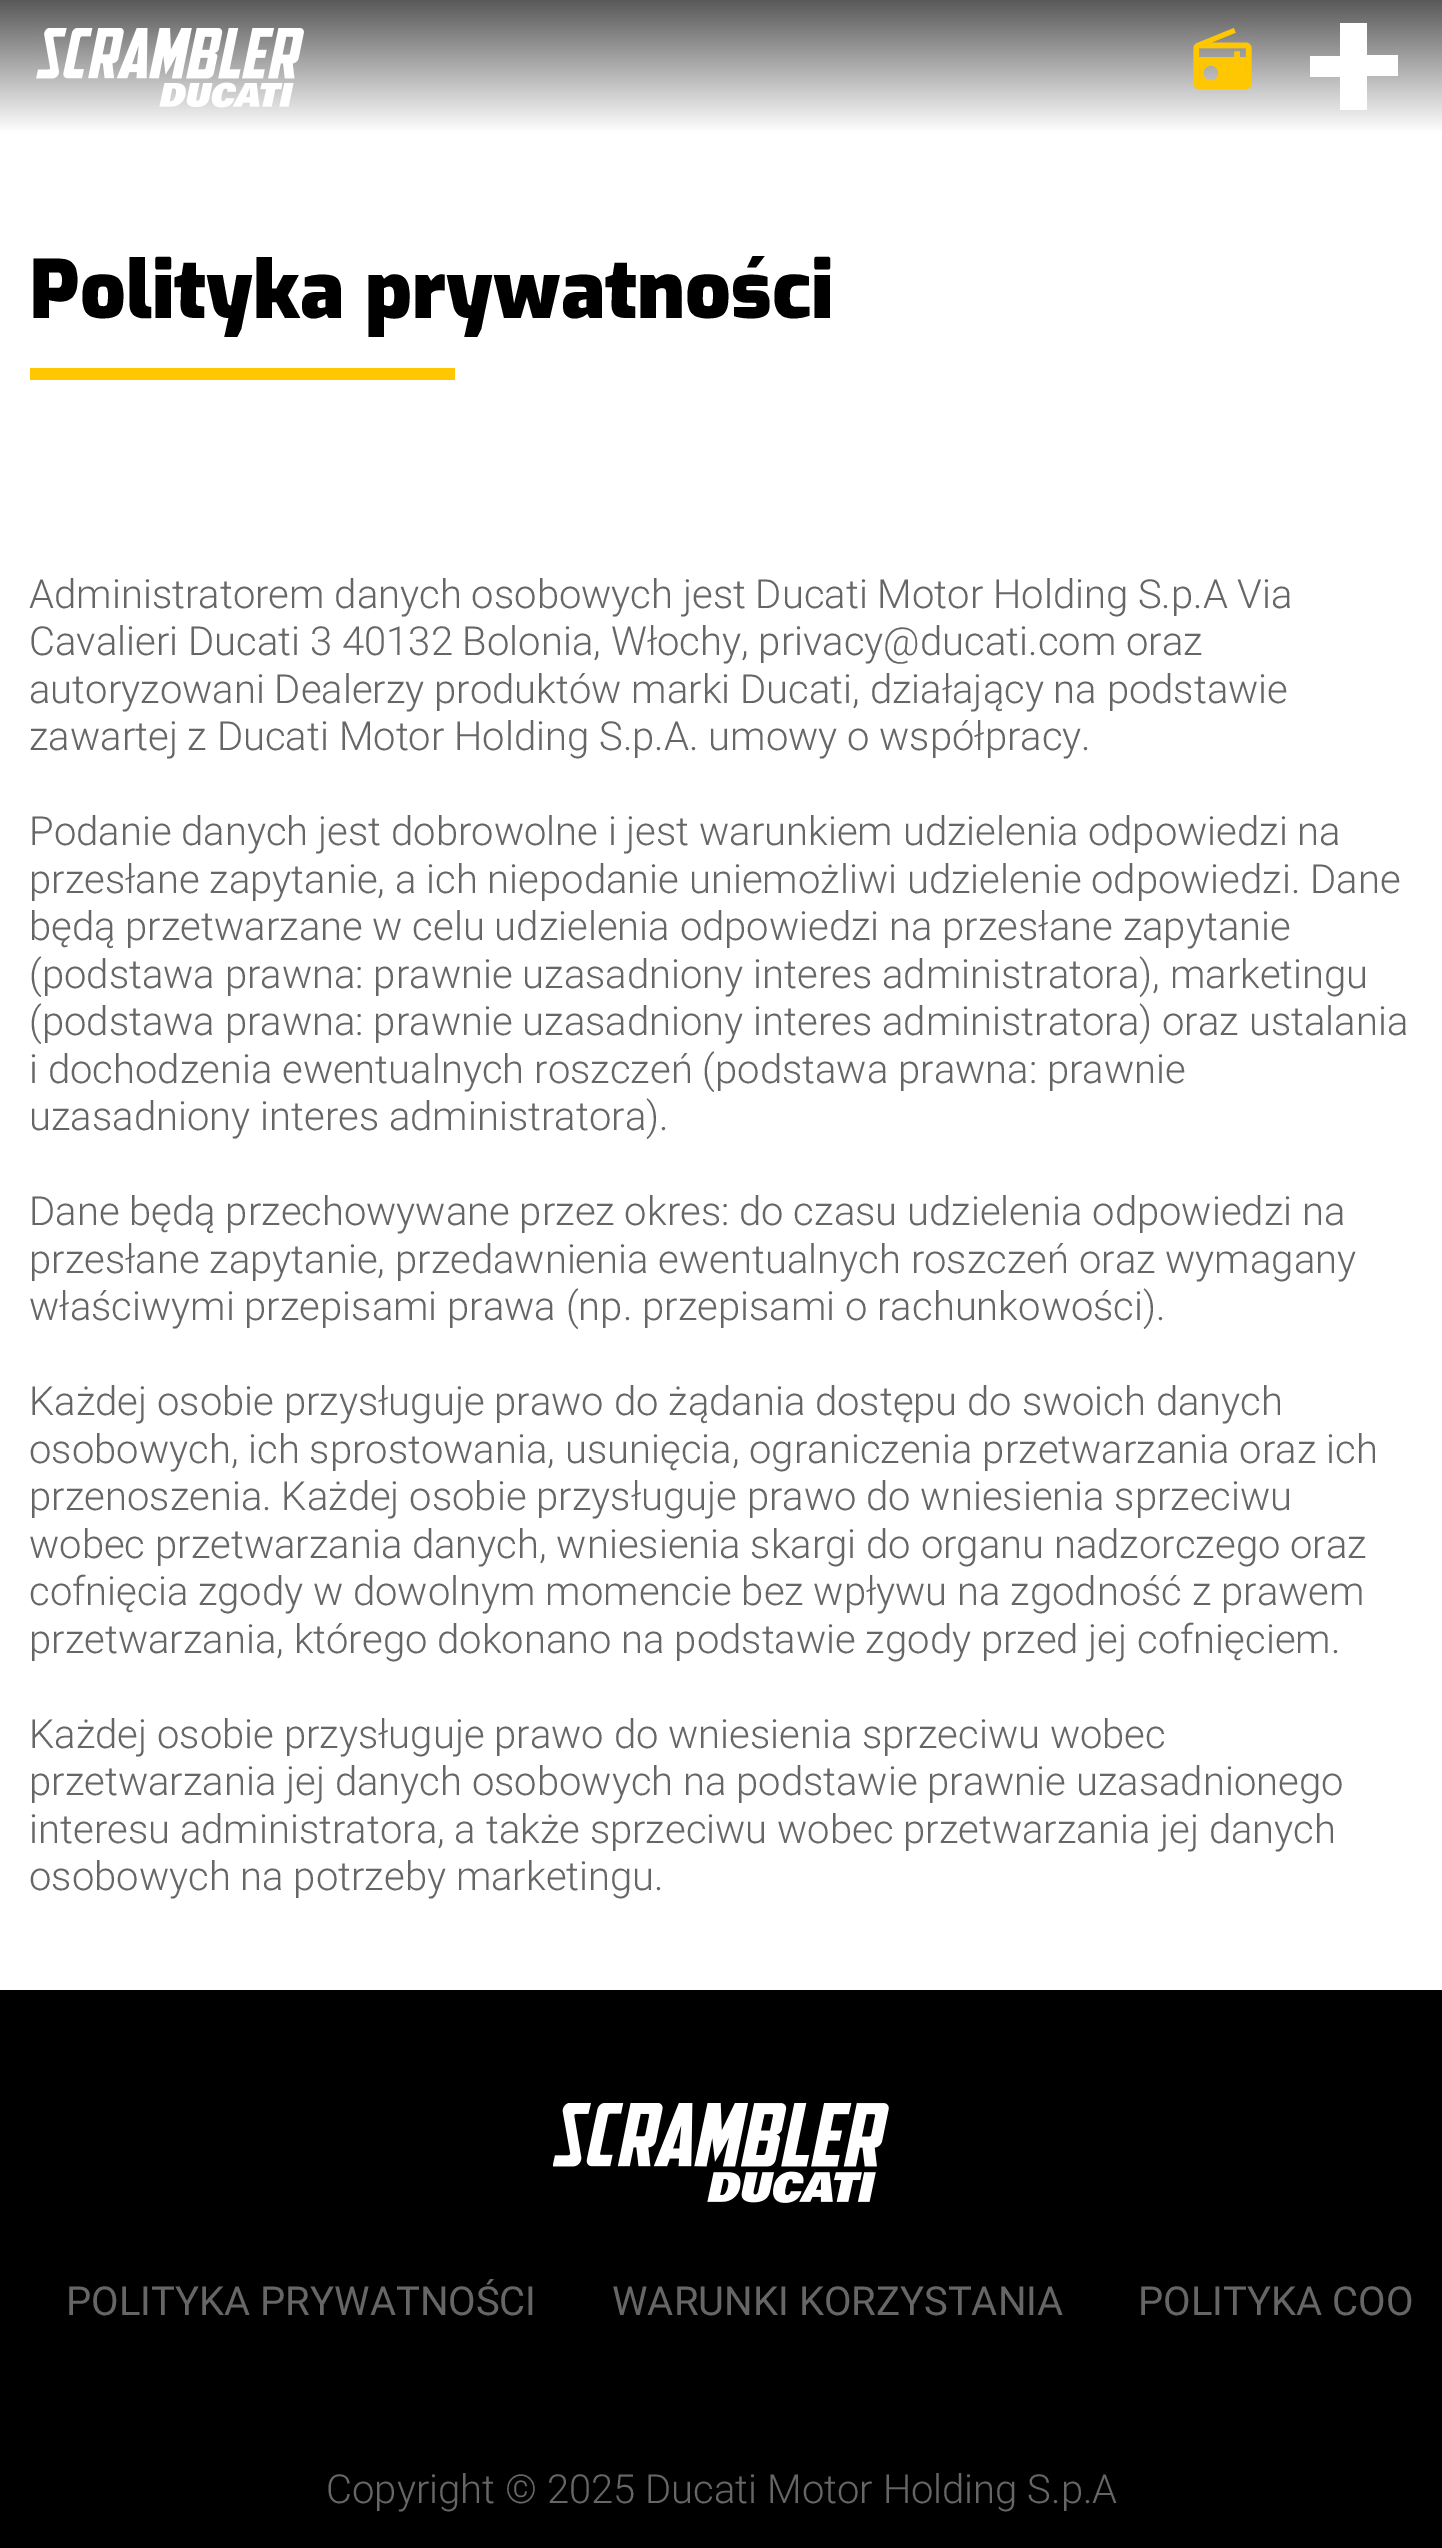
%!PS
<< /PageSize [1442 2548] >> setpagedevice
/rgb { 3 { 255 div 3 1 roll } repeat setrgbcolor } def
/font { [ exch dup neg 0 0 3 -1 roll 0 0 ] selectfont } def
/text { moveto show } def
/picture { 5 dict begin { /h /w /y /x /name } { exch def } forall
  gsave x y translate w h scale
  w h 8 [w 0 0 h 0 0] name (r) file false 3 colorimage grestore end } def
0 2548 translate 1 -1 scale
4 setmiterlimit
255 255 255 rgb
0 0 1442 2548 rectfill
gsave 0 0 moveto 1442 0 rlineto 0 131 rlineto -1442 0 rlineto closepath clip newpath
<< /ShadingType 2 /ColorSpace /DeviceRGB /Coords [721 0 721 133] /Extend [true true] /Function << /FunctionType 2 /Domain [0 1] /C0 [0.349 0.349 0.349] /C1 [1 1 1] /N 1 >> >> shfill grestore
(img_01.rgb) 36 28 268 80 picture
(img_02.rgb) 1193 28 59 62 picture
gsave
1310 23 88 87 rectclip
1367 77 moveto 0 33 rlineto -27 0 rlineto 0 -33 rlineto -30 0 rlineto 0 -21 rlineto 30 0 rlineto 0 -34 rlineto 27 0 rlineto 0 33 rlineto 31 0 rlineto 0 21 rlineto -31 0 rlineto closepath fill
grestore
255 198 2 rgb
30 368 425 12 rectfill
0 0 0 rgb
0 1990 1442 558 rectfill
(img_03.rgb) 553 2103 336 100 picture
/Exo-Black 80 font
(Polityka prywatności) 29 318 text
/Roboto-Light 40 font
102 102 102 rgb
(Administratorem danych osobowych jest Ducati Motor Holding S.p.A Via) 29 608 text
(Cavalieri Ducati 3 40132 Bolonia, Włochy, privacy@ducati.com oraz) 29 655 text
(autoryzowani Dealerzy produktów marki Ducati, działający na podstawie) 29 703 text
(zawartej z Ducati Motor Holding S.p.A. umowy o współpracy.) 29 750 text
(Podanie danych jest dobrowolne i jest warunkiem udzielenia odpowiedzi na) 29 845 text
(przesłane zapytanie, a ich niepodanie uniemożliwi udzielenie odpowiedzi. Dane) 29 893 text
(będą przetwarzane w celu udzielenia odpowiedzi na przesłane zapytanie) 29 940 text
(\(podstawa prawna: prawnie uzasadniony interes administratora\), marketingu) 29 988 text
(\(podstawa prawna: prawnie uzasadniony interes administratora\) oraz ustalania) 29 1035 text
(i dochodzenia ewentualnych roszczeń \(podstawa prawna: prawnie) 29 1083 text
(uzasadniony interes administratora\).) 29 1130 text
(Dane będą przechowywane przez okres: do czasu udzielenia odpowiedzi na) 29 1225 text
(przesłane zapytanie, przedawnienia ewentualnych roszczeń oraz wymagany) 29 1273 text
(właściwymi przepisami prawa \(np. przepisami o rachunkowości\).) 29 1320 text
(Każdej osobie przysługuje prawo do żądania dostępu do swoich danych) 29 1415 text
(osobowych, ich sprostowania, usunięcia, ograniczenia przetwarzania oraz ich) 29 1463 text
(przenoszenia. Każdej osobie przysługuje prawo do wniesienia sprzeciwu) 29 1510 text
(wobec przetwarzania danych, wniesienia skargi do organu nadzorczego oraz) 29 1558 text
(cofnięcia zgody w dowolnym momencie bez wpływu na zgodność z prawem) 29 1605 text
(przetwarzania, którego dokonano na podstawie zgody przed jej cofnięciem.) 29 1653 text
(Każdej osobie przysługuje prawo do wniesienia sprzeciwu wobec) 29 1748 text
(przetwarzania jej danych osobowych na podstawie prawnie uzasadnionego) 29 1795 text
(interesu administratora, a także sprzeciwu wobec przetwarzania jej danych) 29 1843 text
(osobowych na potrzeby marketingu.) 29 1890 text
/Roboto-Regular 40 font
(POLITYKA PRYWATNOŚCI) 66 2315 text
(WARUNKI KORZYSTANIA) 612 2315 text
(POLITYKA COO) 1138 2315 text
/Roboto-Light 40 font
(Copyright © 2025 Ducati Motor Holding S.p.A) 326 2503 text
showpage
